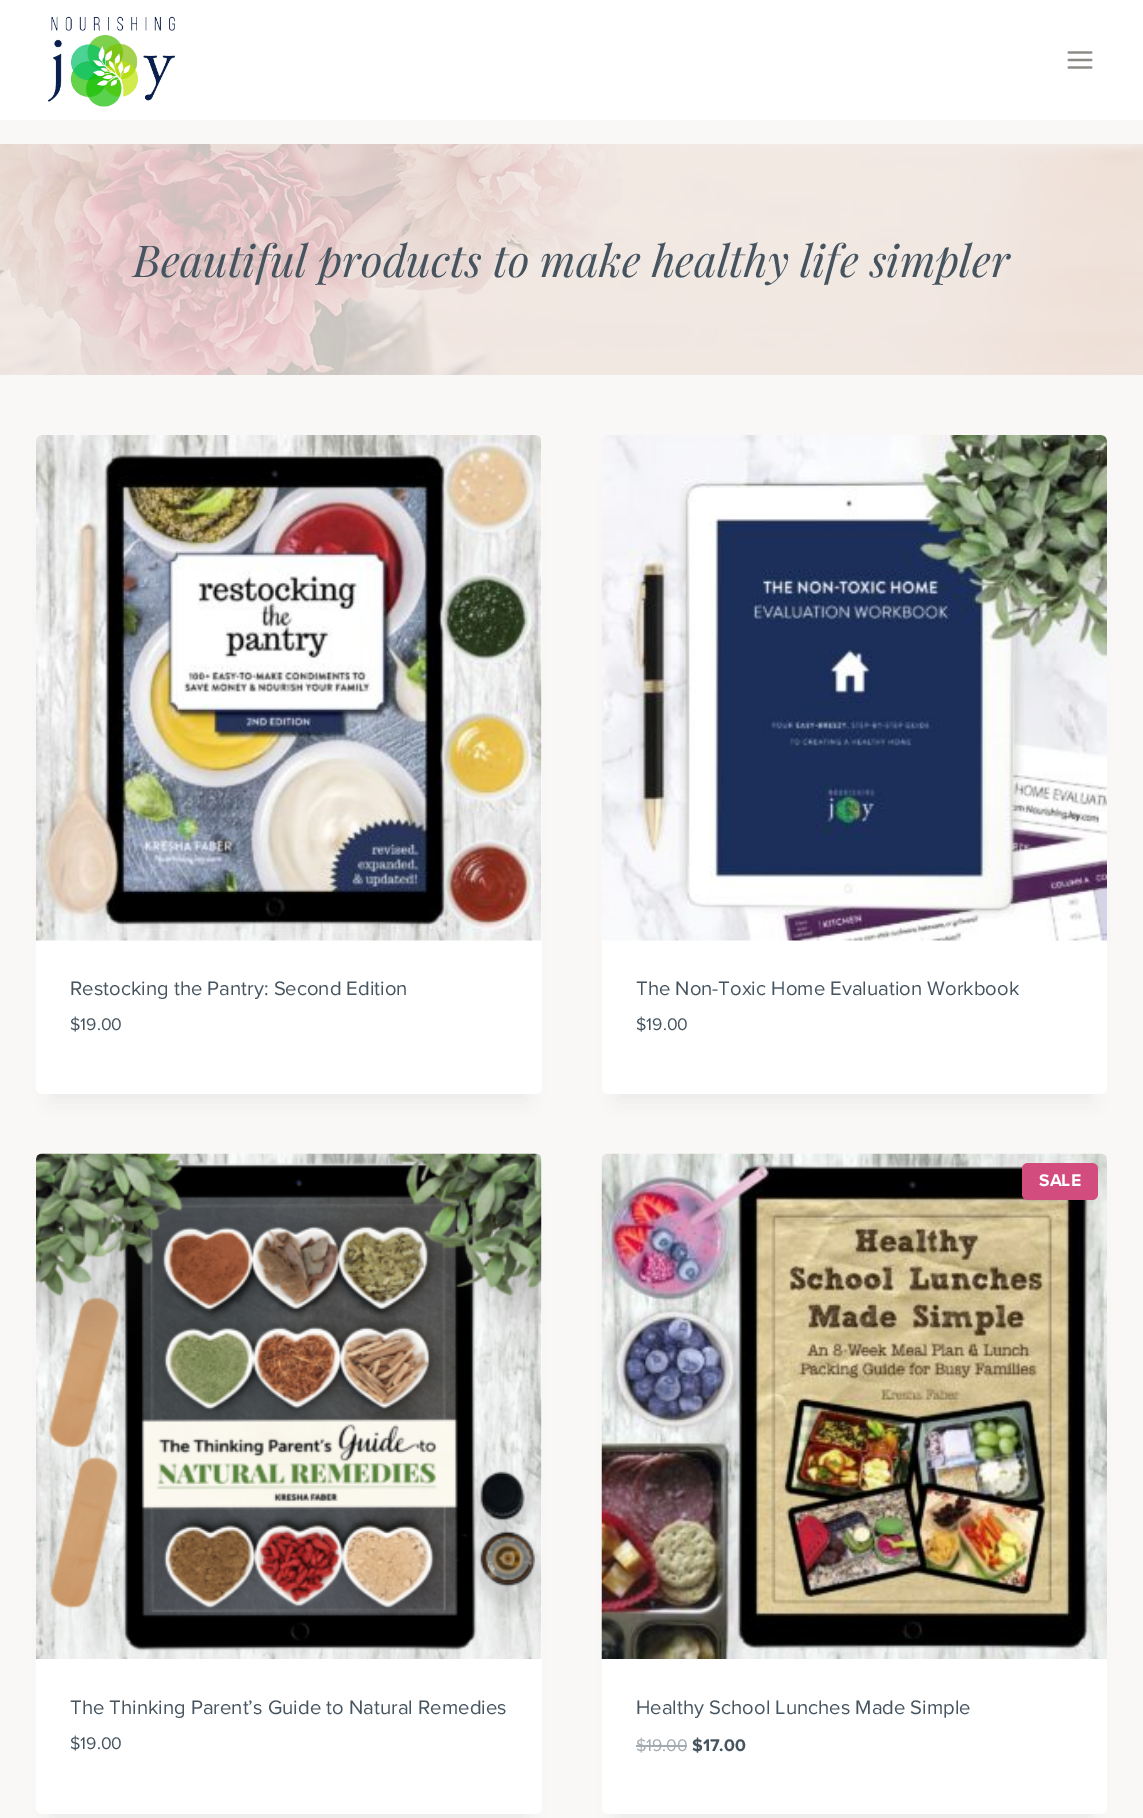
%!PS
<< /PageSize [1143 1818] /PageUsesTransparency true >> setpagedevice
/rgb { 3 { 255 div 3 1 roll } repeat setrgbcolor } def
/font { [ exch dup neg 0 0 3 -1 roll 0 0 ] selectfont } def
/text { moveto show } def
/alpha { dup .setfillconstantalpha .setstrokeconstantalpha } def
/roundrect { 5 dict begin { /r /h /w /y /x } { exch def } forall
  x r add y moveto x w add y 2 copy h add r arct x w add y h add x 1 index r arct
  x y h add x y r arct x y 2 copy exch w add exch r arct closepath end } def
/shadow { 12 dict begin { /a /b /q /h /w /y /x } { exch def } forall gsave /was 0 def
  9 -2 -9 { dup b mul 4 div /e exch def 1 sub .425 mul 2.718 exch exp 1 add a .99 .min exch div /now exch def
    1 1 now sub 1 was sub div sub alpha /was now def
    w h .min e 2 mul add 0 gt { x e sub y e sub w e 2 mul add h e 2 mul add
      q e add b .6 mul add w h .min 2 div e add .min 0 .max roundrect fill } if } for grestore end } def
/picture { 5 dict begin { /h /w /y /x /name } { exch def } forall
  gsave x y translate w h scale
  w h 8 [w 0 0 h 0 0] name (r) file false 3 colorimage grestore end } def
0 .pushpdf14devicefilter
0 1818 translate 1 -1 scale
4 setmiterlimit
249 248 246 rgb
0 0 1143 1818 rectfill
255 255 255 rgb
0 0 1143 120 rectfill
(img_01.rgb) 47 16 128 91 picture
(img_02.rgb) 1067 51 26 18 picture
(img_03.rgb) 0 144 1143 231 picture
0 0 0 rgb
51 473 476 628 0 11 0.05 shadow
255 255 255 rgb
36 435 506 659 6 roundrect fill
(img_04.rgb) 36 435 506 506 picture
0 0 0 rgb
617 473 475 628 0 11 0.05 shadow
255 255 255 rgb
602 435 505 659 6 roundrect fill
(img_05.rgb) 601 435 506 506 picture
0 0 0 rgb
51 1191 476 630 0 11 0.05 shadow
255 255 255 rgb
36 1154 506 660 6 roundrect fill
(img_06.rgb) 36 1153 506 506 picture
0 0 0 rgb
617 1191 475 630 0 11 0.05 shadow
255 255 255 rgb
602 1154 505 660 6 roundrect fill
(img_07.rgb) 601 1153 506 506 picture
211 76 126 rgb
1022 1163 76 37 6 roundrect fill
163 170 176 rgb
636 1745 11 2 rectfill
647 1745 40 2 rectfill
/PlayfairDisplay-Italic 44 font
70 84 96 rgb
(Beautiful products to make healthy life simpler) 133 277 text
/ProximaNova-Regular 20.25 font
(Restocking the Pantry: Second Edition) 70 995 text
/ProximaNova-Regular 17.5 font
($19.00) 70 1030 text
/ProximaNova-Regular 20.25 font
(The Non-Toxic Home Evaluation Workbook) 636 995 text
/ProximaNova-Regular 17.5 font
($19.00) 636 1030 text
/ProximaNova-Regular 20.25 font
(The Thinking Parent’s Guide to Natural Remedies) 70 1714 text
/ProximaNova-Regular 17.5 font
($19.00) 70 1749 text
/ProximaNova-Bold 17.5 font
255 255 255 rgb
(SALE) 1039 1186 text
/ProximaNova-Regular 20.25 font
70 84 96 rgb
(Healthy School Lunches Made Simple) 636 1714 text
/ProximaNova-Regular 17.5 font
163 170 176 rgb
($) 636 1751 text
(19.00) 646 1751 text
/ProximaNova-Bold 17.5 font
70 84 96 rgb
($17.00) 692 1751 text
.poppdf14devicefilter showpage
